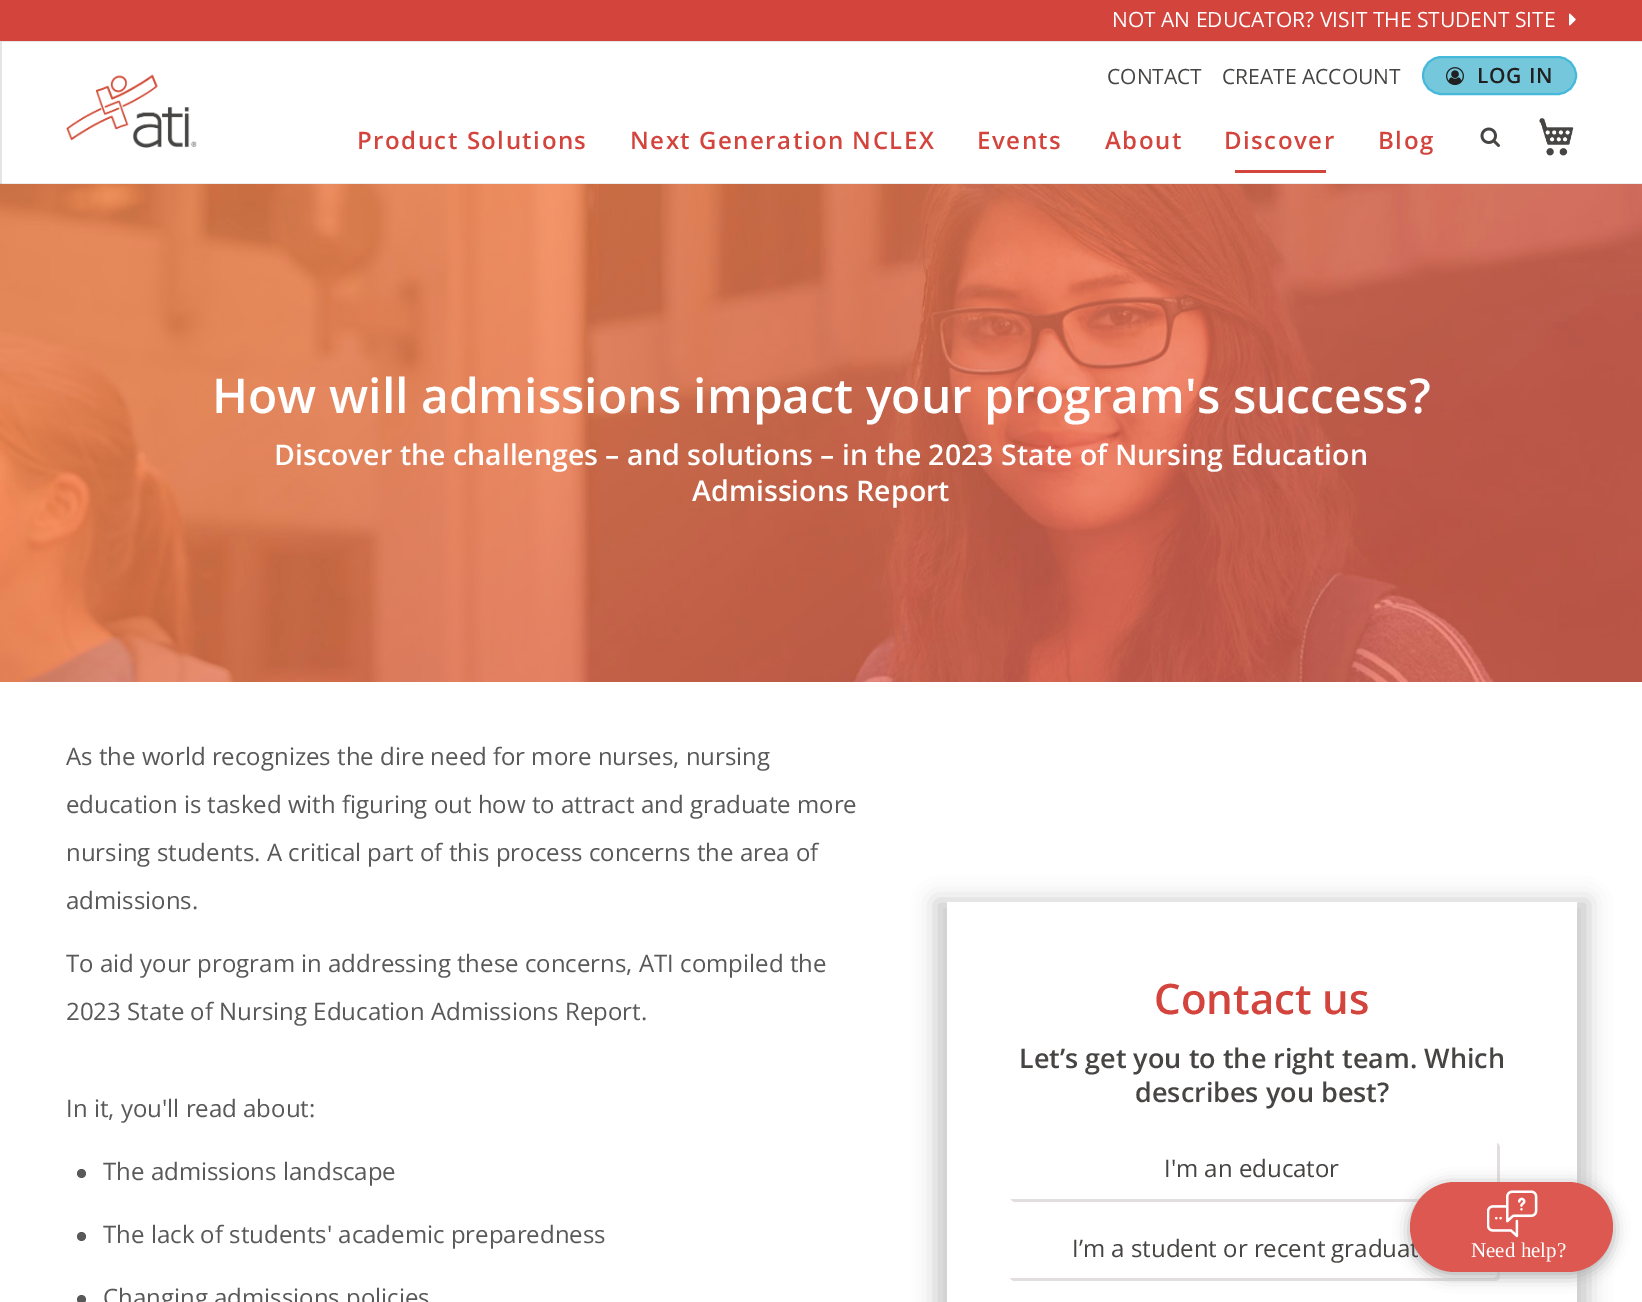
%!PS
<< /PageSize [1642 1302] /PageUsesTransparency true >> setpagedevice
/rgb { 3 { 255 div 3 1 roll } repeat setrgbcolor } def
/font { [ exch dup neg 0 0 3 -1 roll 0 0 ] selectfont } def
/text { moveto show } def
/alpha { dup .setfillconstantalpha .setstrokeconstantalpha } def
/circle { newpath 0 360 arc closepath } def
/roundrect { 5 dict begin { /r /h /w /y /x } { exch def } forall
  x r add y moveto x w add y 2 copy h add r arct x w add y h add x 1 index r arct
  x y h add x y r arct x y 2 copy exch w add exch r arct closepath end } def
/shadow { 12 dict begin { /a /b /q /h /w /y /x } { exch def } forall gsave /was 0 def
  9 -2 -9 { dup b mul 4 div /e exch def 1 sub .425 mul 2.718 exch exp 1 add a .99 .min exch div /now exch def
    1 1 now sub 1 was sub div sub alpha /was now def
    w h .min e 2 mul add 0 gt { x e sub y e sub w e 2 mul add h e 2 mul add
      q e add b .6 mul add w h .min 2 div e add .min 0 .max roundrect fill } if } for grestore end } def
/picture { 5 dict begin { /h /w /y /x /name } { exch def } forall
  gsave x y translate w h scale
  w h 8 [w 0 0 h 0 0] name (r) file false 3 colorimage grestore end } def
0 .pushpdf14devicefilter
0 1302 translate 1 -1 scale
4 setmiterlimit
255 255 255 rgb
0 0 1642 1302 rectfill
211 68 61 rgb
0 0 1642 41 rectfill
(img_01.rgb) 1569 13 7 13 picture
237 237 237 rgb
0 183 1642 1 rectfill
gsave
0 41 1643 144 rectclip
0.1 alpha
0 0 0 rgb
-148 -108 moveto 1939 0 rlineto 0 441 rlineto -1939 0 rlineto closepath 2 42 moveto 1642 0 rlineto 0 144 rlineto -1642 0 rlineto closepath eofill
grestore
(img_02.rgb) 66 74 131 74 picture
117 200 219 rgb
1423 57 153 37 18.5 roundrect gsave fill grestore
70 184 218 rgb
2 setlinewidth
stroke
(img_03.rgb) 1446 67 18 19 picture
(img_04.rgb) 1539 118 35 38 picture
211 68 61 rgb
1235 170 91 3 rectfill
(img_05.rgb) 1480 127 20 20 picture
(img_06.rgb) 0 184 1642 498 picture
89 89 89 rgb
81.5 1173.5 4.5 circle fill
81.5 1236.5 4.5 circle fill
81.5 1299.5 4.5 circle fill
60 60 60 rgb
935 900 654 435 0 11 0.27 shadow
255 255 255 rgb
947 902 630 400 rectfill
227 222 222 rgb
1010 1198 moveto 1 2 3 4 5 4 rcurveto 480 0 rlineto 3 0 5 -2 5 -5 rcurveto 0 -49 rlineto 0 -2 -1 -4 -3 -5 rcurveto 0 43 rlineto 0 3 2 12 -5 12 rcurveto closepath fill
255 255 255 rgb
1007 1140 490 59 5 roundrect fill
227 222 222 rgb
1010 1278 moveto 1 2 3 3 5 3 rcurveto 480 0 rlineto 3 0 5 -2 5 -5 rcurveto 0 -48 rlineto 0 -2 -1 -4 -3 -5 rcurveto 0 42 rlineto 0 3 2 13 -5 13 rcurveto closepath fill
255 255 255 rgb
1007 1220 490 58 5 roundrect fill
181 181 181 rgb
1409 1184 205 93 46.5 7.5 1 shadow
/OpenSans-Regular 21 font
255 255 255 rgb
(NOT AN EDUCATOR? VISIT THE STUDENT SITE) 1112 27 text
71 69 68 rgb
(CONTACT) 1107 84 text
(CREATE ACCOUNT) 1222 84 text
/OpenSans-SemiBold 21 font
32 32 32 rgb
1477 83 moveto 0.75 0 (LOG IN) ashow
/OpenSans-SemiBold 24 font
211 68 61 rgb
357 149 moveto 1.5 0 (Product Solutions) ashow
630 149 moveto 1.5 0 (Next Generation NCLEX) ashow
977 149 moveto 1.5 0 (Events) ashow
1105 149 moveto 1.5 0 (About) ashow
1224 149 moveto 1.5 0 (Discover) ashow
1378 149 moveto 1.5 0 (Blog) ashow
/OpenSans-SemiBold 48 font
255 255 255 rgb
(How will admissions impact your program's success?) 212 413 text
/OpenSans-SemiBold 28.5 font
(Discover the challenges – and solutions – in the 2023 State of Nursing Education) 274 465 text
(Admissions Report) 692 501 text
/OpenSans-Regular 24 font
89 89 89 rgb
(As the world recognizes the dire need for more nurses, nursing) 66 765 text
(education is tasked with figuring out how to attract and graduate more) 66 813 text
(nursing students. A critical part of this process concerns the area of) 66 861 text
(admissions.) 66 909 text
(To aid your program in addressing these concerns, ATI compiled the) 66 972 text
(2023 State of Nursing Education Admissions Report.) 66 1020 text
(In it, you'll read about:) 66 1117 text
(The admissions landscape) 103 1180 text
(The lack of students' academic preparedness) 103 1243 text
(Changing admissions policies) 103 1306 text
/OpenSans-SemiBold 42 font
211 68 61 rgb
(Contact us) 1154 1014 text
/OpenSans-SemiBold 27 font
71 69 68 rgb
(Let’s get you to the right team. Which) 1019 1068 text
(describes you best?) 1135 1102 text
/OpenSans-Regular 24 font
(I'm an educator) 1164 1177 text
(I’m a student or recent graduat) 1072 1257 text
221 88 80 rgb
1410 1182 203 90 45 roundrect fill
(img_07.rgb) 1487 1190 51 48 picture
/LiberationSerif-Regular 21 font
255 255 255 rgb
(Need help?) 1471 1257 text
.poppdf14devicefilter showpage
